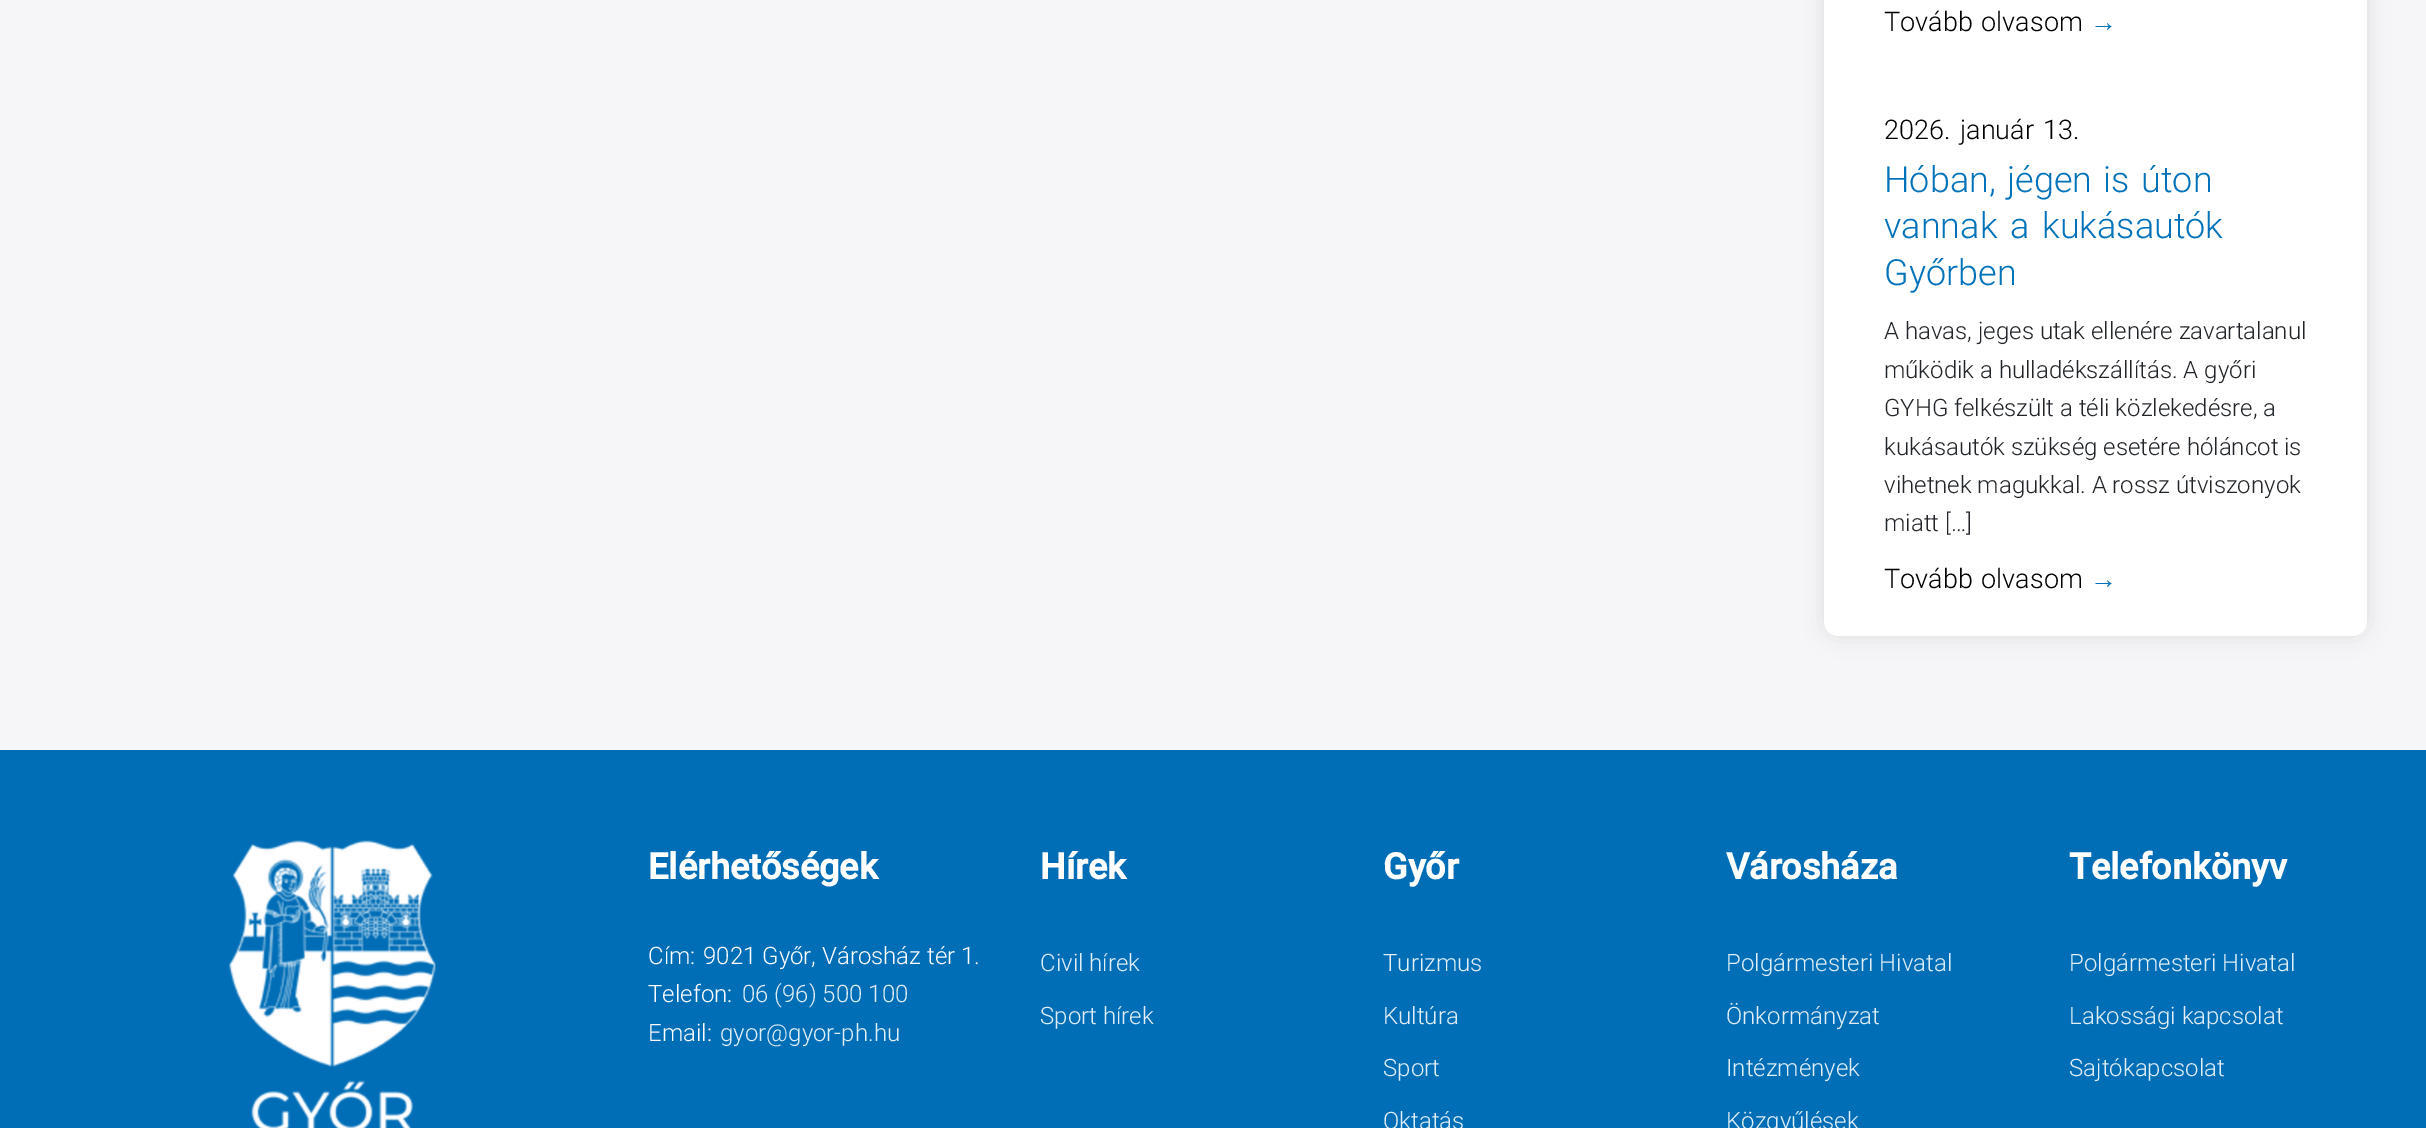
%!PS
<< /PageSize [2426 1128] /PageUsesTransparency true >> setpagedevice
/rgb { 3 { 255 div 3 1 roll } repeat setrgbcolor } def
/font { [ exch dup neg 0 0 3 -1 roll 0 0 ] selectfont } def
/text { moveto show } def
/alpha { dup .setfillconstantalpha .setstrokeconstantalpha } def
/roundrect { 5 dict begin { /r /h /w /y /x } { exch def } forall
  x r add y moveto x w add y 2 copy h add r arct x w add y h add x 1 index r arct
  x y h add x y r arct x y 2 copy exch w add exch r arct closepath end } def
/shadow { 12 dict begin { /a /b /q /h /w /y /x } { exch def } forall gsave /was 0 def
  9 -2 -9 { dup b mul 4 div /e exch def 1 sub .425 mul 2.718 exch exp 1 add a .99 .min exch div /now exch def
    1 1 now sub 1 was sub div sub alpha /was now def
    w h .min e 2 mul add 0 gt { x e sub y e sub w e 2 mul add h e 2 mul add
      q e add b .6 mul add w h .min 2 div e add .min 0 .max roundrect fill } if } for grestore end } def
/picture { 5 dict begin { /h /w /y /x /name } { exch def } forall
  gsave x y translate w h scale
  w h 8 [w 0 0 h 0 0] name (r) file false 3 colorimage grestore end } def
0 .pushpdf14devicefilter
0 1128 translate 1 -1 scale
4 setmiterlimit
246 246 248 rgb
0 0 2426 1128 rectfill
0 0 0 rgb
1824 -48 543 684 15 11 0.1 shadow
255 255 255 rgb
1824 -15 543 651 15 roundrect fill
0 110 183 rgb
0 750 2426 378 rectfill
(img_01.rgb) 229 840 207 288 picture
/Roboto-Light 27 font
0 0 0 rgb
1884 31 moveto 2 0 32 (Tovább olvasom) widthshow
/LiberationSans-Regular 27 font
1 114 186 rgb
(→) 2090 31 text
/Roboto-Light 27 font
0 0 0 rgb
1884 139 moveto 3 0 32 (2026. január 13.) widthshow
/Roboto-Light 36 font
1 114 186 rgb
1884 192 moveto 2.5 0 32 (Hóban, jégen is úton) widthshow
1884 238 moveto 4 0 32 (vannak a kukásautók) widthshow
(Győrben) 1884 285 text
/Roboto-Light 24 font
33 37 41 rgb
(A havas, jeges utak ellenére zavartalanul) 1884 339 text
(működik a hulladékszállítás. A győri) 1884 378 text
(GYHG felkészült a téli közlekedésre, a) 1884 416 text
(kukásautók szükség esetére hóláncot is) 1884 455 text
(vihetnek magukkal. A rossz útviszonyok) 1884 493 text
(miatt […]) 1884 531 text
/Roboto-Light 27 font
0 0 0 rgb
1884 588 moveto 2 0 32 (Tovább olvasom) widthshow
/LiberationSans-Regular 27 font
1 114 186 rgb
(→) 2090 588 text
/Roboto-Bold 36 font
255 255 255 rgb
(Elérhetőségek) 648 879 text
/Roboto-Light 24 font
(Cím:) 648 964 text
(9021 Győr, Városház tér 1.) 703 964 text
(Telefon:) 648 1002 text
224 238 246 rgb
(06 \(96\) 500 100) 742 1002 text
255 255 255 rgb
(Email:) 648 1041 text
224 238 246 rgb
(gyor@gyor-ph.hu) 720 1041 text
/Roboto-Bold 36 font
255 255 255 rgb
(Hírek) 1040 879 text
/Roboto-Light 24 font
224 238 246 rgb
(Civil hírek) 1040 971 text
(Sport hírek) 1040 1024 text
/Roboto-Bold 36 font
255 255 255 rgb
(Győr) 1383 879 text
/Roboto-Light 24 font
224 238 246 rgb
(Turizmus) 1383 971 text
(Kultúra) 1383 1024 text
(Sport) 1383 1076 text
(Oktatás) 1383 1129 text
/Roboto-Bold 36 font
255 255 255 rgb
(Városháza) 1726 879 text
/Roboto-Light 24 font
224 238 246 rgb
(Polgármesteri Hivatal) 1726 971 text
(Önkormányzat) 1726 1024 text
(Intézmények) 1726 1076 text
(Közgyűlések) 1726 1129 text
/Roboto-Bold 36 font
255 255 255 rgb
(Telefonkönyv) 2069 879 text
/Roboto-Light 24 font
224 238 246 rgb
(Polgármesteri Hivatal) 2069 971 text
(Lakossági kapcsolat) 2069 1024 text
(Sajtókapcsolat) 2069 1076 text
.poppdf14devicefilter showpage
